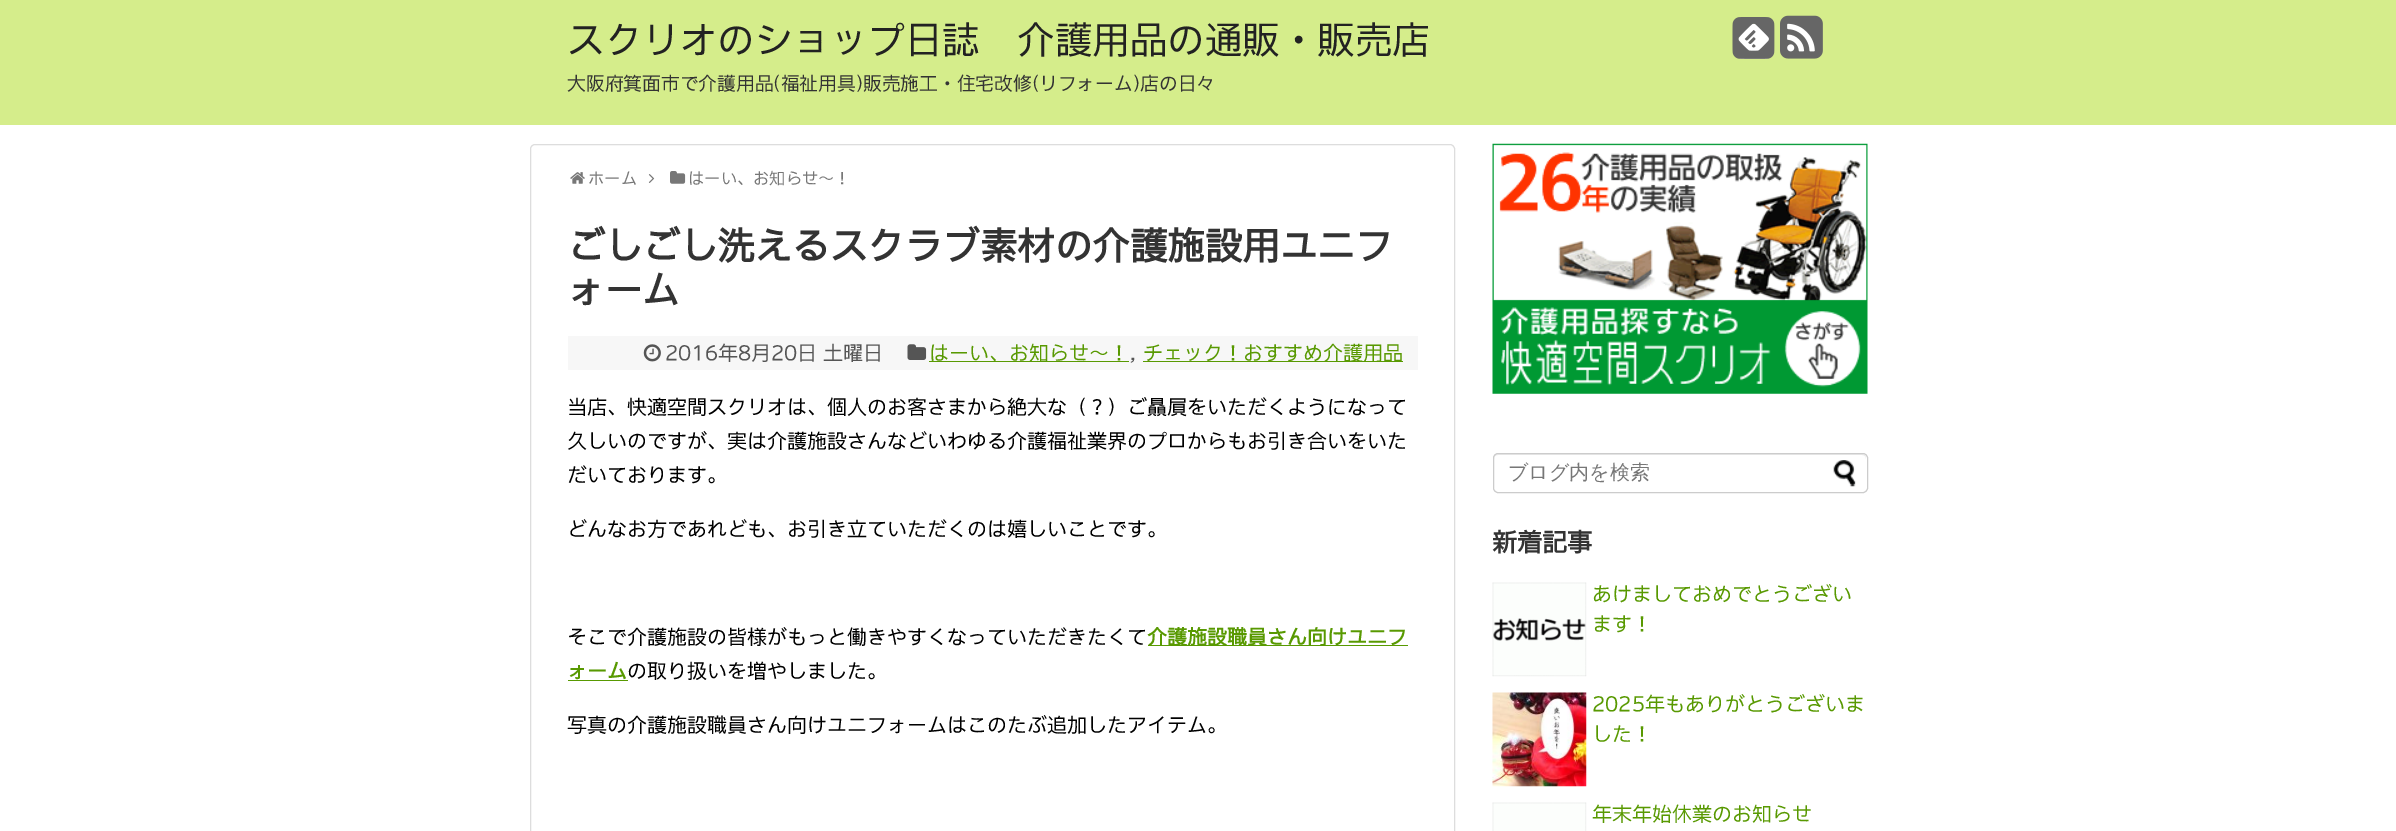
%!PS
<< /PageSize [2396 831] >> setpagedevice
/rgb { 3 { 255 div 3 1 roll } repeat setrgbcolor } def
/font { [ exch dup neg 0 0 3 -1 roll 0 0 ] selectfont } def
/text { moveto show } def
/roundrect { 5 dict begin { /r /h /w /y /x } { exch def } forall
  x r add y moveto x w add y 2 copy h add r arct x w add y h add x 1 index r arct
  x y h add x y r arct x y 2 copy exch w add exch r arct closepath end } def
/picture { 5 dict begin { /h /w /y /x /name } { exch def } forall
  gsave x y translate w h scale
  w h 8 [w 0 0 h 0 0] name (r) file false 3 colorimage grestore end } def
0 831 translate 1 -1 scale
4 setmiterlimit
255 255 255 rgb
0 0 2396 831 rectfill
213 237 139 rgb
0 0 2396 125 rectfill
(img_04.rgb) 1738 23 33 36 picture
(img_01.rgb) 1732 17 43 42 picture
(img_02.rgb) 1787 23 34 34 picture
(img_03.rgb) 1780 15 43 44 picture
221 221 221 rgb
530.5 144.5 924 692 4.5 roundrect stroke
(img_05.rgb) 570 172 15 12 picture
(img_06.rgb) 648 174 7 9 picture
(img_07.rgb) 670 171 16 13 picture
247 247 247 rgb
568 336 850 34 rectfill
(img_08.rgb) 643 344 18 18 picture
(img_09.rgb) 907 344 20 16 picture
88 153 1 rgb
929 361 200 1 rectfill
1143 361 260 1 rectfill
1148 645 260 1 rectfill
568 680 60 1 rectfill
(img_10.rgb) 1492 143 376 251 picture
236 236 236 rgb
1498 455 moveto 364 0 rlineto 3 0 4 2 4 4 rcurveto 0 -3 -1 -5 -4 -5 rcurveto -364 0 rlineto -3 0 -4 2 -4 5 rcurveto 0 -2 1 -4 4 -4 rcurveto closepath fill
204 204 204 rgb
1493.5 453.5 374 39 4.5 roundrect stroke
(img_11.rgb) 1833 460 23 27 picture
(img_12.rgb) 1492 582 95 95 picture
(img_13.rgb) 1492 692 95 95 picture
(img_14.rgb) 1492 802 95 29 picture
/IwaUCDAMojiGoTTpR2-Regular 37.5 font
34 34 34 rgb
(スクリオのショップ日誌　介護用品の通販・販売店) 567 53 text
/IwaUCDAMojiGoTTpR2-Regular 18.75 font
51 51 51 rgb
(大阪府箕面市で介護用品\(福祉用具\)販売施工・住宅改修\(リフォーム\)店の日々) 567 90 text
/IwaUCDAMojiGoTTpR2-Regular 16.25 font
119 119 119 rgb
(ホーム) 588 184 text
(はーい、お知らせ〜！) 688 184 text
/IwaUCDAMojiGoTTpR2-Bold 37.5 font
51 51 51 rgb
(ごしごし洗えるスクラブ素材の介護施設用ユニフ) 567 259 text
(ォーム) 567 303 text
/IwaUCDAMojiGoTTpR2-Regular 20 font
85 85 85 rgb
(2016年8月20日 土曜日) 665 360 text
88 153 1 rgb
(はーい、お知らせ〜！) 929 360 text
85 85 85 rgb
(,) 1129 360 text
88 153 1 rgb
(チェック！おすすめ介護用品) 1143 360 text
0 0 0 rgb
(当店、快適空間スクリオは、個人のお客さまから絶大な（？）ご贔屓をいただくようになって) 567 414 text
(久しいのですが、実は介護施設さんなどいわゆる介護福祉業界のプロからもお引き合いをいた) 567 448 text
(だいております。) 567 482 text
(どんなお方であれども、お引き立ていただくのは嬉しいことです。) 567 536 text
(そこで介護施設の皆様がもっと働きやすくなっていただきたくて) 567 644 text
/IwaUCDAMojiGoTTpR2-Bold 20 font
88 153 1 rgb
(介護施設職員さん向けユニフ) 1147 644 text
(ォーム) 567 678 text
/IwaUCDAMojiGoTTpR2-Regular 20 font
0 0 0 rgb
(の取り扱いを増やしました。) 627 678 text
(写真の介護施設職員さん向けユニフォームはこのたぶ追加したアイテム。) 567 732 text
/WenQuanYiZenHei-Medium 20 font
119 119 119 rgb
(ブログ内を検索) 1508 479 text
/IwaUCDAMojiGoTTpR2-Bold 25 font
51 51 51 rgb
(新着記事) 1492 551 text
/IwaUCDAMojiGoTTpR2-Regular 20 font
88 153 1 rgb
(あけましておめでとうござい) 1592 601 text
(ます！) 1592 631 text
(2025年もありがとうございま) 1592 711 text
(した！) 1592 741 text
(年末年始休業のお知らせ) 1592 821 text
showpage
